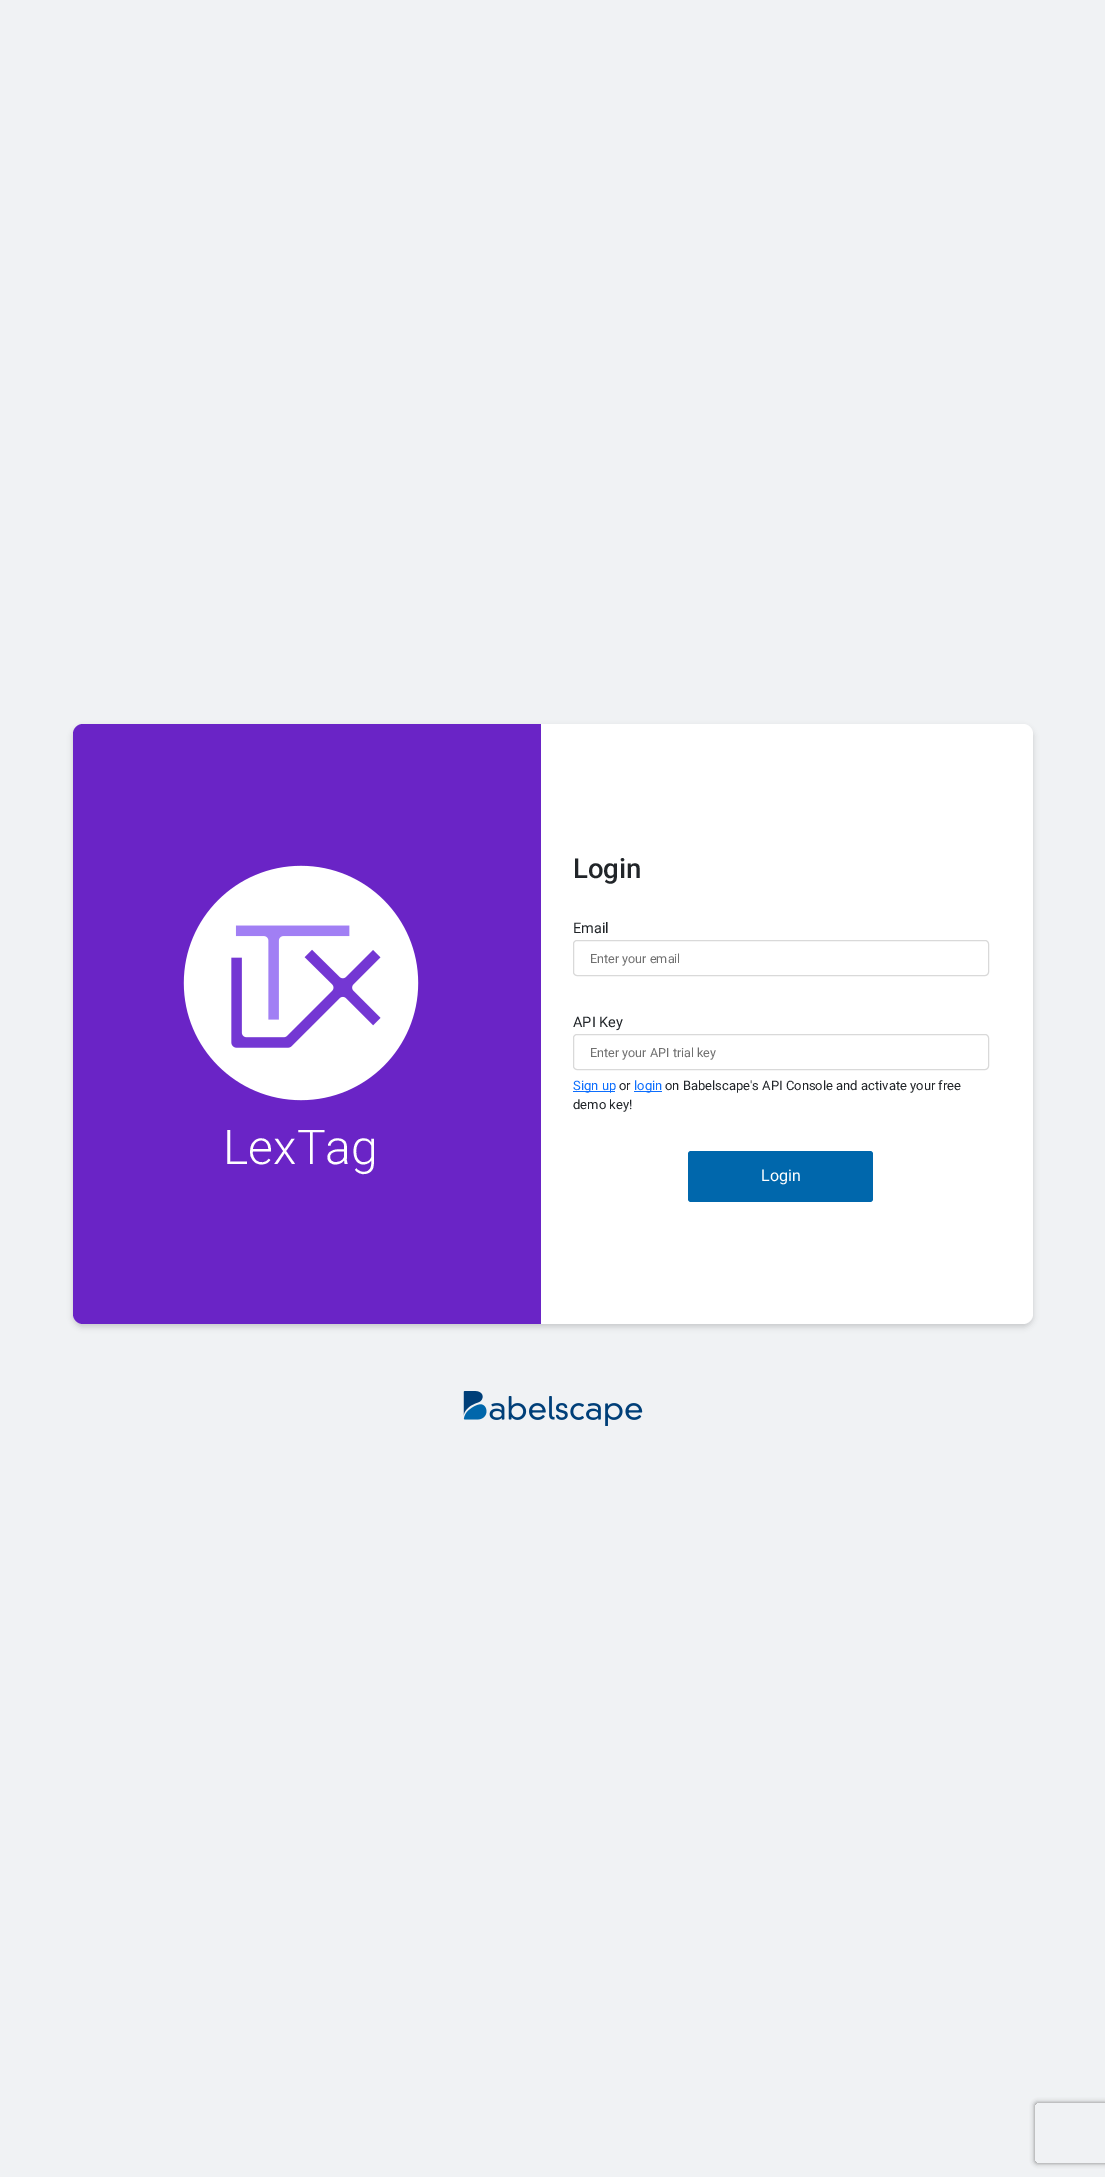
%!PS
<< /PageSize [1105 2177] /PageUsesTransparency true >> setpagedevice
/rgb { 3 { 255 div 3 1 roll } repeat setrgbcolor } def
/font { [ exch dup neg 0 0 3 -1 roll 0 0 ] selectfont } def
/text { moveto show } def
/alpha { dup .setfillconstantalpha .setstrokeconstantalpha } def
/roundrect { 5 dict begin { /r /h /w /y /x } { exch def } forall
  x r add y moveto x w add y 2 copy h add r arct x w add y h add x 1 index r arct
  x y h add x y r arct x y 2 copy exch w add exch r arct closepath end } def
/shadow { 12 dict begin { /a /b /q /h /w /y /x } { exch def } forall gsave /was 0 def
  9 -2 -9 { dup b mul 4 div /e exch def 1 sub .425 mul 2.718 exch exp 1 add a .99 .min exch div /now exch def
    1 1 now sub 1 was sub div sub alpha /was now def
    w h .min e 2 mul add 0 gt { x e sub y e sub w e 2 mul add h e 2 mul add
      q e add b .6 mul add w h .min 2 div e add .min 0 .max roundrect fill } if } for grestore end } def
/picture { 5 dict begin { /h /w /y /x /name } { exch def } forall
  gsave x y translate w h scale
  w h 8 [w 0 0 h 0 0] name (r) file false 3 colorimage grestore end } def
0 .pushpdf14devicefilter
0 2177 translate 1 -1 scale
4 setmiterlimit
240 242 244 rgb
0 0 1105 2177 rectfill
0 0 0 rgb
73 727 960 600 10 3 0.16 shadow
255 255 255 rgb
73 724 960 600 10 roundrect fill
106 36 198 rgb
83 724 moveto 458 0 rlineto 0 600 rlineto -458 0 rlineto -5.5 0 -10 -4.5 -10 -10 rcurveto 0 -580 rlineto 0 -5.5 4.5 -10 10 -10 rcurveto closepath fill
(img_01.rgb) 183 865 236 236 picture
217 217 217 rgb
573.5 940.5 415 35 3.5 roundrect stroke
573.5 1034.5 415 35 3.5 roundrect stroke
13 110 253 rgb
573 1091 42 1 rectfill
634 1091 28 1 rectfill
0 103 172 rgb
688 1151 185 51 3 roundrect fill
(img_02.rgb) 463 1391 180 35 picture
gsave
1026 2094 moveto 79 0 rlineto 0 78 rlineto -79 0 rlineto closepath 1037 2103 moveto 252 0 rlineto 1 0 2 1 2 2 rcurveto 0 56 rlineto 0 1 -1 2 -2 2 rcurveto -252 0 rlineto -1 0 -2 -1 -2 -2 rcurveto 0 -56 rlineto 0 -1 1 -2 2 -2 rcurveto closepath eoclip newpath
128 128 128 rgb
1035 2103 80 60 2 2.5 1 shadow
grestore
/Roboto-Light 48 font
255 255 255 rgb
(LexTag) 223 1164 text
/Roboto-Medium 27.5 font
33 37 41 rgb
(Login) 573 878 text
/Roboto-Regular 14.5 font
(Email) 573 933 text
/Roboto-Regular 12.6 font
112 112 112 rgb
(Enter your email) 590 963 text
/Roboto-Regular 14.5 font
33 37 41 rgb
(API Key) 573 1027 text
/Roboto-Regular 12.6 font
112 112 112 rgb
(Enter your API trial key) 590 1057 text
/Roboto-Regular 13 font
13 110 253 rgb
(Sign up) 573 1090 text
33 37 41 rgb
(or) 619 1090 text
13 110 253 rgb
(login) 634 1090 text
33 37 41 rgb
(on Babelscape's API Console and activate your free) 665 1090 text
(demo key!) 573 1109 text
/Roboto-Regular 16 font
255 255 255 rgb
(Login) 761 1181 text
.poppdf14devicefilter showpage
